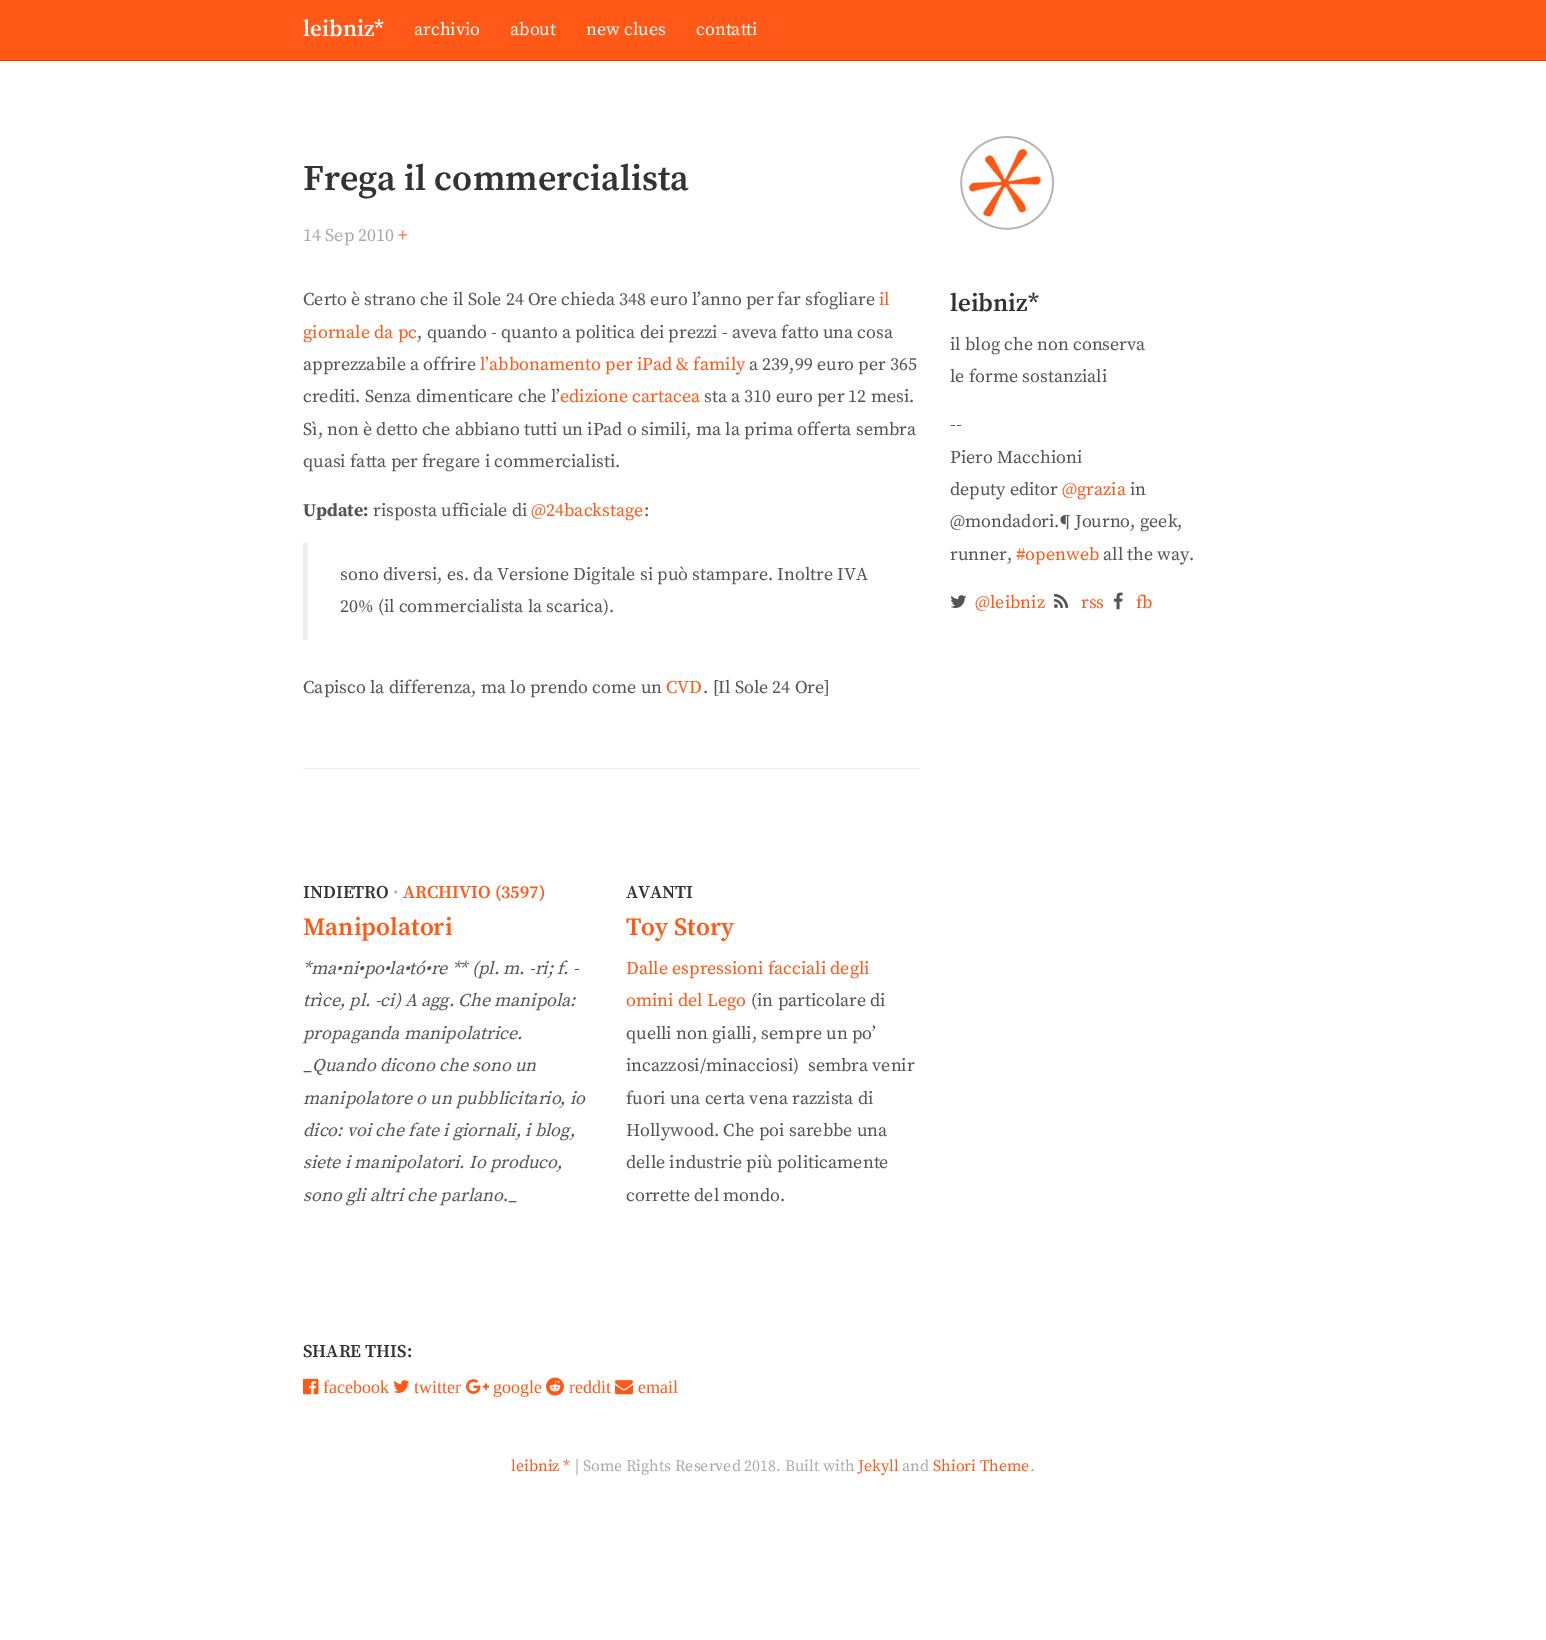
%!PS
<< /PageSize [1546 1640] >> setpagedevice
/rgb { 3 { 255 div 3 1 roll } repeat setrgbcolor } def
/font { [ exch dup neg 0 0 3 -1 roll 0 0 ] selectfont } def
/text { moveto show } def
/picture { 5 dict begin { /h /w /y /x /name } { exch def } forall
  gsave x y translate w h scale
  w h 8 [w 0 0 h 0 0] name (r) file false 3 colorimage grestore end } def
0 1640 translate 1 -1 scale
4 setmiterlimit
255 255 255 rgb
0 0 1546 1640 rectfill
255 88 23 rgb
0 0 1546 60 rectfill
227 64 0 rgb
0 60 1546 1 rectfill
238 238 238 rgb
303 543 5 97 rectfill
303 768 617 1 rectfill
(img_01.rgb) 303 1378 16 17 picture
(img_02.rgb) 393 1380 17 13 picture
(img_03.rgb) 466 1379 24 15 picture
(img_04.rgb) 546 1377 18 19 picture
(img_05.rgb) 615 1380 18 15 picture
(img_06.rgb) 960 136 94 94 picture
(img_07.rgb) 950 595 17 13 picture
(img_08.rgb) 1054 593 15 15 picture
(img_09.rgb) 1113 592 10 18 picture
/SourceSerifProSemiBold-SemiBold 23 font
255 255 255 rgb
(leibniz*) 303 36 text
/SourceSerifPro-Regular 18 font
(archivio) 414 35 text
(about) 510 35 text
(new clues) 586 35 text
(contatti) 696 35 text
/SourceSerifProSemiBold-SemiBold 36 font
51 51 51 rgb
(Frega il commercialista) 303 190 text
/SourceSerifPro-Regular 18 font
170 170 170 rgb
(14 Sep 2010) 303 241 text
255 88 23 rgb
(+) 398 241 text
85 85 85 rgb
(Certo è strano che il Sole 24 Ore chieda 348 euro l’anno per far sfogliare) 303 305 text
255 88 23 rgb
(il) 879 305 text
(giornale da pc) 303 338 text
85 85 85 rgb
(, quando - quanto a politica dei prezzi - aveva fatto una cosa) 417 338 text
(apprezzabile a offrire) 303 370 text
255 88 23 rgb
(l’abbonamento per iPad & family) 480 370 text
85 85 85 rgb
(a 239,99 euro per 365) 749 370 text
(crediti. Senza dimenticare che l’) 303 402 text
255 88 23 rgb
(edizione cartacea) 560 402 text
85 85 85 rgb
(sta a 310 euro per 12 mesi.) 704 402 text
(Sì, non è detto che abbiano tutti un iPad o simili, ma la prima offerta sembra) 303 435 text
(quasi fatta per fregare i commercialisti.) 303 467 text
/SourceSerifPro-Bold 18 font
(Update:) 303 516 text
/SourceSerifPro-Regular 18 font
(risposta ufficiale di) 373 516 text
255 88 23 rgb
(@24backstage) 531 516 text
85 85 85 rgb
(:) 644 516 text
(sono diversi, es. da Versione Digitale si può stampare. Inoltre IVA) 340 580 text
(20% \(il commercialista la scarica\).) 340 612 text
(Capisco la differenza, ma lo prendo come un) 303 693 text
255 88 23 rgb
(CVD) 666 693 text
85 85 85 rgb
(. [Il Sole 24 Ore]) 703 693 text
/SourceSerifProSemiBold-SemiBold 18 font
51 51 51 rgb
(INDIETRO) 303 898 text
170 170 170 rgb
(·) 393 898 text
255 88 23 rgb
(ARCHIVIO \(3597\)) 403 898 text
/SourceSerifProSemiBold-SemiBold 25 font
(Manipolatori) 303 935 text
/SourceSerifPro-Italic 18 font
85 85 85 rgb
(*ma•ni•po•la•tó•re ** \(pl. m. -ri; f. -) 303 974 text
(trìce, pl. -ci\) A agg. Che manipola:) 303 1006 text
(propaganda manipolatrice.) 303 1039 text
(_Quando dicono che sono un) 303 1071 text
(manipolatore o un pubblicitario, io) 303 1104 text
(dico: voi che fate i giornali, i blog,) 303 1136 text
(siete i manipolatori. Io produco,) 303 1168 text
(sono gli altri che parlano) 303 1201 text
/SourceSerifPro-Regular 18 font
(._) 503 1201 text
/SourceSerifProSemiBold-SemiBold 18 font
51 51 51 rgb
(AVANTI) 626 898 text
/SourceSerifProSemiBold-SemiBold 25 font
255 88 23 rgb
(Toy Story) 626 935 text
/SourceSerifPro-Regular 18 font
(Dalle espressioni facciali degli) 626 974 text
(omini del Lego) 626 1006 text
85 85 85 rgb
(\(in particolare di) 751 1006 text
(quelli non gialli, sempre un po’) 626 1039 text
(incazzosi/minacciosi\)  sembra venir) 626 1071 text
(fuori una certa vena razzista di) 626 1104 text
(Hollywood. Che poi sarebbe una) 626 1136 text
(delle industrie più politicamente) 626 1168 text
(corrette del mondo.) 626 1201 text
/SourceSerifProSemiBold-SemiBold 18 font
51 51 51 rgb
(SHARE THIS:) 303 1357 text
/LiberationSerif-Regular 18 font
255 88 23 rgb
(facebook) 323 1393 text
(twitter) 414 1393 text
(google) 493 1393 text
(reddit) 569 1393 text
(email) 638 1393 text
/SourceSerifProSemiBold-SemiBold 25 font
51 51 51 rgb
(leibniz*) 950 311 text
/SourceSerifPro-Regular 18 font
85 85 85 rgb
(il blog che non conserva) 950 350 text
(le forme sostanziali) 950 382 text
(--) 950 430 text
(Piero Macchioni) 950 463 text
(deputy editor) 950 495 text
255 88 23 rgb
(@grazia) 1062 495 text
85 85 85 rgb
(in) 1130 495 text
(@mondadori.¶ Journo, geek,) 950 527 text
(runner,) 950 560 text
255 88 23 rgb
(#openweb) 1016 560 text
85 85 85 rgb
(all the way.) 1103 560 text
255 88 23 rgb
(@leibniz) 975 608 text
(rss) 1081 608 text
(fb) 1136 608 text
/SourceSerifPro-Regular 16 font
(leibniz *) 511 1471 text
170 170 170 rgb
(| Some Rights Reserved 2018. Built with) 575 1471 text
255 88 23 rgb
(Jekyll) 858 1471 text
170 170 170 rgb
(and) 902 1471 text
255 88 23 rgb
(Shiori Theme) 933 1471 text
170 170 170 rgb
(.) 1030 1471 text
showpage
